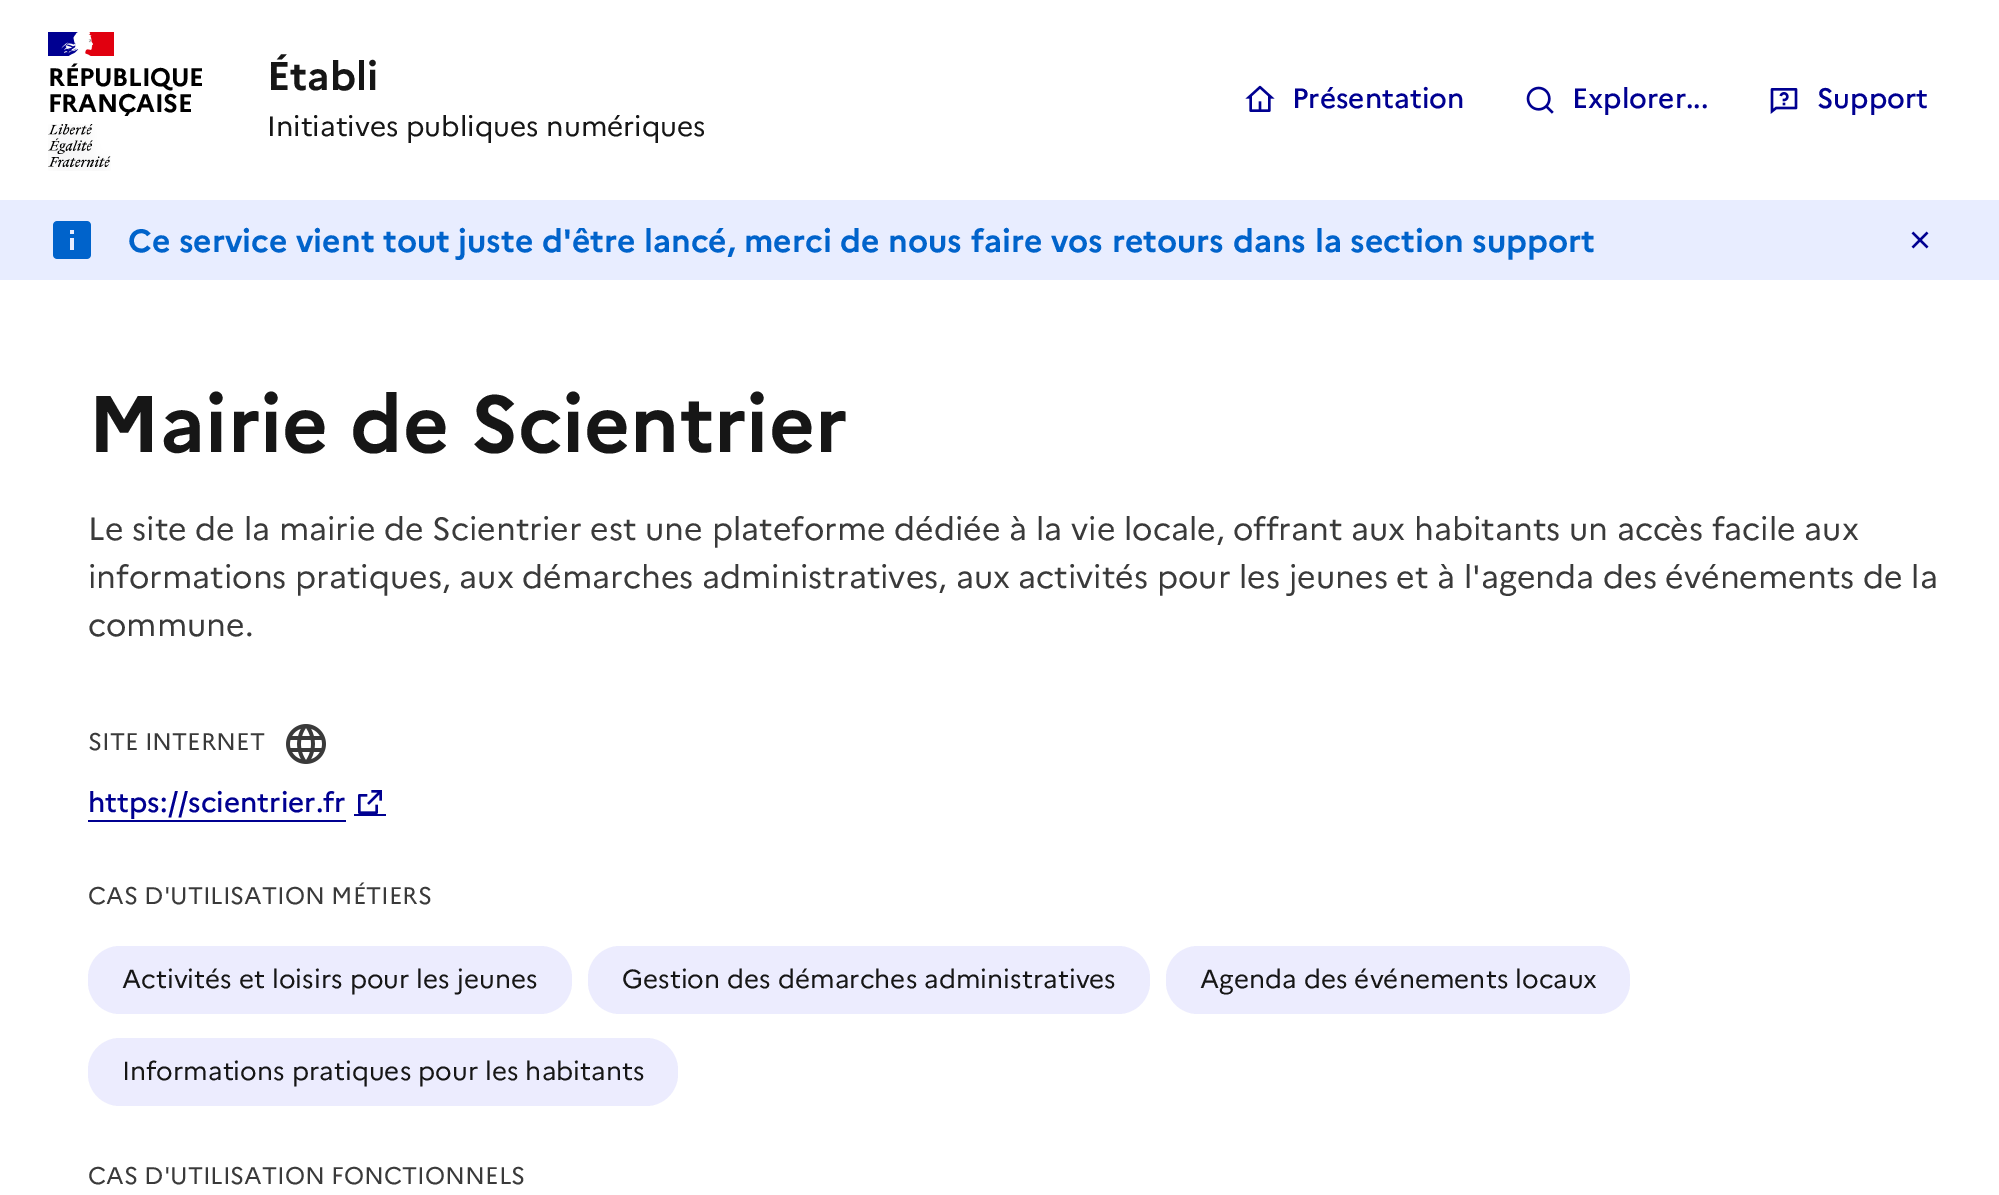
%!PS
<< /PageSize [1999 1195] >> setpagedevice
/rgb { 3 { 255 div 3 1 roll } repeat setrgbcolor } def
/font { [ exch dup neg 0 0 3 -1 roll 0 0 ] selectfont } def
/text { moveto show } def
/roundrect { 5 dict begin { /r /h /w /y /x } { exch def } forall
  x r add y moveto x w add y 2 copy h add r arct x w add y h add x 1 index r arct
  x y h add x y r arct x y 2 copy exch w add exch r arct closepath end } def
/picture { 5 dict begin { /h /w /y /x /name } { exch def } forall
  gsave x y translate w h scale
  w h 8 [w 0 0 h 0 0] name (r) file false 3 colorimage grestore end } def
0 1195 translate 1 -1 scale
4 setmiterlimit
255 255 255 rgb
0 0 1999 1195 rectfill
0 0 145 rgb
48 32 31 24 rectfill
225 0 15 rgb
85 32 29 24 rectfill
(img_01.rgb) 61 32 32 24 picture
(img_02.rgb) 48 124 63 47 picture
(img_03.rgb) 1245 85 30 27 picture
(img_04.rgb) 1526 86 28 28 picture
(img_05.rgb) 1770 88 28 26 picture
232 237 255 rgb
0 200 1999 80 rectfill
(img_06.rgb) 53 221 38 38 picture
(img_07.rgb) 1911 231 18 18 picture
(img_08.rgb) 286 724 40 40 picture
0 0 145 rgb
88 820 258 2 rectfill
354 814 32 2 rectfill
(img_09.rgb) 358 790 24 24 picture
236 236 254 rgb
88 946 484 68 32 roundrect fill
588 946 562 68 32 roundrect fill
1166 946 464 68 32 roundrect fill
88 1038 590 68 32 roundrect fill
/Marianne-Bold 25.25 font
0 0 0 rgb
48 86 moveto -0.25 0 (RÉPUBLIQUE) ashow
48 112 moveto -0.25 0 (FRANÇAISE) ashow
/Marianne-Bold 40 font
22 22 22 rgb
(Établi) 267 90 text
/Marianne-Regular 28 font
(Initiatives publiques numériques) 267 136 text
/Marianne-Medium 28 font
0 0 145 rgb
(Présentation) 1292 108 text
(Explorer...) 1572 108 text
(Support) 1817 108 text
/Marianne-Bold 32 font
0 99 203 rgb
(Ce service vient tout juste d'être lancé, merci de nous faire vos retours dans la section support) 128 252 text
/Marianne-Bold 80 font
22 22 22 rgb
(Mairie de Scientrier) 88 452 text
/Marianne-Regular 32 font
58 58 58 rgb
(Le site de la mairie de Scientrier est une plateforme dédiée à la vie locale, offrant aux habitants un accès facile aux) 88 540 text
(informations pratiques, aux démarches administratives, aux activités pour les jeunes et à l'agenda des événements de la) 88 588 text
(commune.) 88 636 text
/Marianne-Regular 24 font
(SITE INTERNET) 88 750 text
/Marianne-Medium 28 font
0 0 145 rgb
(https://scientrier.fr) 88 812 text
/Marianne-Regular 24 font
58 58 58 rgb
(CAS D'UTILISATION MÉTIERS) 88 904 text
/Marianne-Regular 26 font
22 22 22 rgb
(Activités et loisirs pour les jeunes) 122 988 text
(Gestion des démarches administratives) 622 988 text
(Agenda des événements locaux) 1200 988 text
(Informations pratiques pour les habitants) 122 1080 text
/Marianne-Regular 24 font
58 58 58 rgb
(CAS D'UTILISATION FONCTIONNELS) 88 1184 text
showpage
